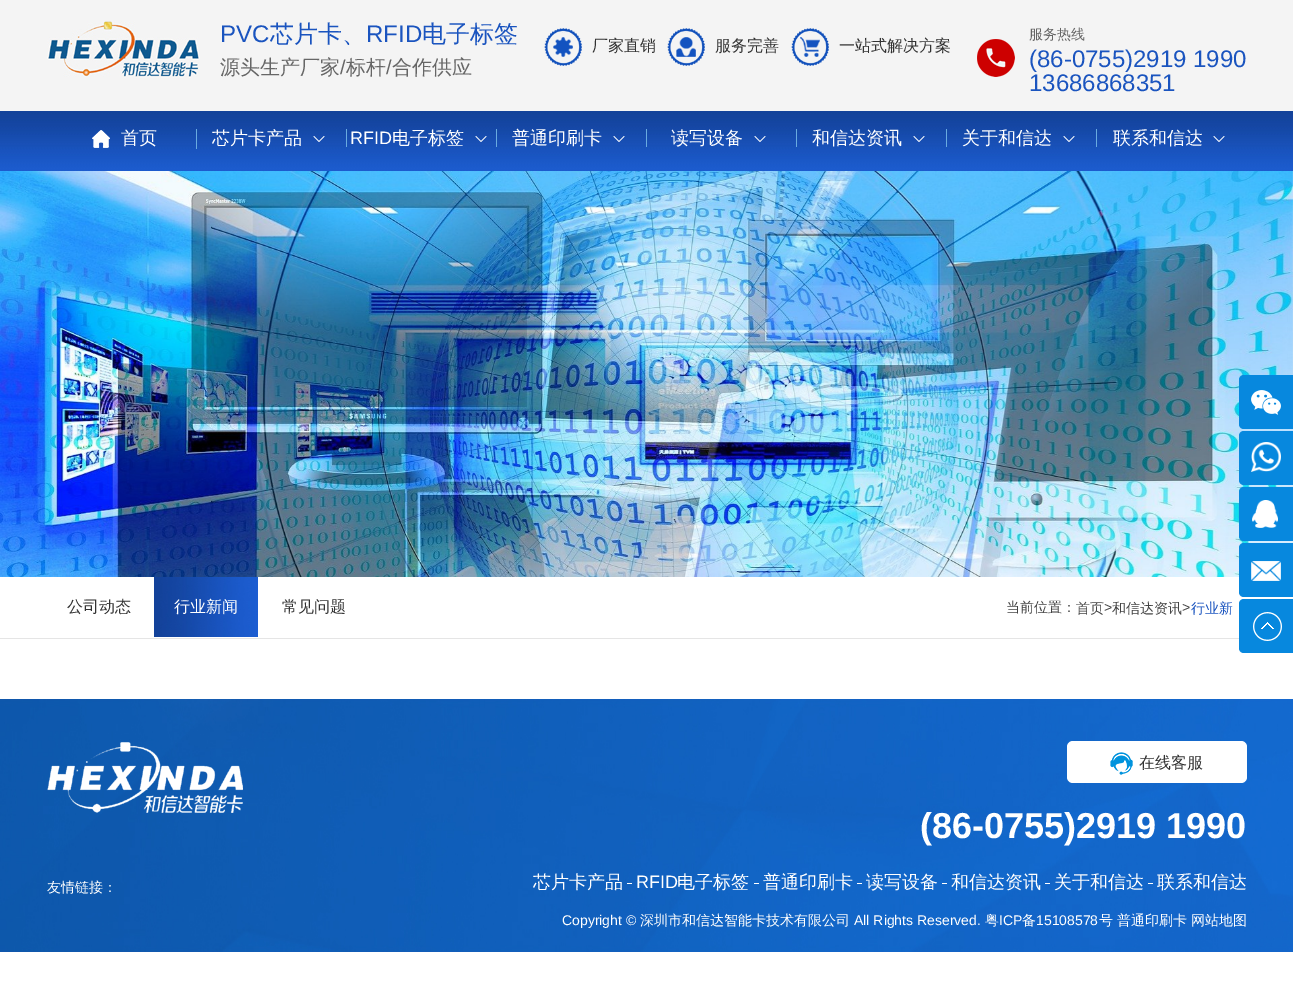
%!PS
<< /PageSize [1293 987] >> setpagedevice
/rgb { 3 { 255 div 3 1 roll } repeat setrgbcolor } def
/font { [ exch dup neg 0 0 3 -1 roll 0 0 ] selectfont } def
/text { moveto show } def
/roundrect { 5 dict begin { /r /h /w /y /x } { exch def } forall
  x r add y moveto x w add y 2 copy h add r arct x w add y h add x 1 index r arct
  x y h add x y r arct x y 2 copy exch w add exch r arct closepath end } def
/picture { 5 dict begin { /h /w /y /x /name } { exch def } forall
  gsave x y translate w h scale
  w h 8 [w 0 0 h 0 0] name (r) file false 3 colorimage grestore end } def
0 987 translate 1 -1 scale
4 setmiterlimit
255 255 255 rgb
0 0 1293 987 rectfill
244 244 244 rgb
0 0 1293 111 rectfill
(img_01.rgb) 47 21 153 57 picture
(img_02.rgb) 544 28 38 38 picture
(img_03.rgb) 667 28 38 38 picture
(img_04.rgb) 791 28 38 38 picture
(img_05.rgb) 977 39 38 38 picture
(img_06.rgb) 0 111 1293 60 picture
105 171 224 rgb
196 129 1 20 rectfill
(img_07.rgb) 92 130 18 18 picture
346 129 1 18 rectfill
(img_08.rgb) 313 136 12 6 picture
496 129 1 18 rectfill
(img_08.rgb) 475 136 12 6 picture
646 129 1 18 rectfill
(img_08.rgb) 613 136 12 6 picture
796 129 1 18 rectfill
(img_08.rgb) 754 136 12 6 picture
946 129 1 18 rectfill
(img_08.rgb) 913 136 12 6 picture
1096 129 1 18 rectfill
(img_08.rgb) 1063 136 12 6 picture
(img_08.rgb) 1213 136 12 6 picture
(img_09.rgb) 0 171 1293 406 picture
229 229 229 rgb
0 638 1239 1 rectfill
(img_10.rgb) 154 577 104 60 picture
7 136 222 rgb
1244 375 moveto 49 0 rlineto 0 54 rlineto -49 0 rlineto -3 0 -5 -2 -5 -5 rcurveto 0 -44 rlineto 0 -3 2 -5 5 -5 rcurveto closepath fill
(img_11.rgb) 1251 390 30 25 picture
1244 431 moveto 49 0 rlineto 0 54 rlineto -49 0 rlineto -3 0 -5 -2 -5 -5 rcurveto 0 -44 rlineto 0 -3 2 -5 5 -5 rcurveto closepath fill
(img_12.rgb) 1251 442 30 30 picture
1244 487 moveto 49 0 rlineto 0 54 rlineto -49 0 rlineto -3 0 -5 -2 -5 -5 rcurveto 0 -44 rlineto 0 -3 2 -5 5 -5 rcurveto closepath fill
(img_13.rgb) 1252 500 26 28 picture
1244 543 moveto 49 0 rlineto 0 54 rlineto -49 0 rlineto -3 0 -5 -2 -5 -5 rcurveto 0 -44 rlineto 0 -3 2 -5 5 -5 rcurveto closepath fill
(img_14.rgb) 1251 561 30 20 picture
1244 599 moveto 49 0 rlineto 0 54 rlineto -49 0 rlineto -3 0 -5 -2 -5 -5 rcurveto 0 -44 rlineto 0 -3 2 -5 5 -5 rcurveto closepath fill
(img_15.rgb) 1253 612 29 29 picture
(img_16.rgb) 0 699 1293 253 picture
(img_17.rgb) 47 742 196 71 picture
255 255 255 rgb
1067 741 180 42 6 roundrect fill
(img_18.rgb) 1110 752 23 23 picture
627 883 5 1 rectfill
754 883 5 1 rectfill
857 883 5 1 rectfill
942 883 5 1 rectfill
1045 883 5 1 rectfill
1148 883 5 1 rectfill
/LiberationSans-Regular 24 font
26 84 191 rgb
(PVC) 220 42 text
/WenQuanYiZenHei-Medium 24 font
(芯片卡、) 270 42 text
/LiberationSans-Regular 24 font
(RFID) 366 42 text
/WenQuanYiZenHei-Medium 24 font
(电子标签) 422 42 text
/WenQuanYiZenHei-Medium 20 font
102 102 102 rgb
(源头生产厂家) 220 74 text
/LiberationSans-Regular 20 font
(/) 340 74 text
/WenQuanYiZenHei-Medium 20 font
(标杆) 346 74 text
/LiberationSans-Regular 20 font
(/) 386 74 text
/WenQuanYiZenHei-Medium 20 font
(合作供应) 392 74 text
/WenQuanYiZenHei-Medium 16 font
51 51 51 rgb
(厂家直销) 592 51 text
(服务完善) 715 51 text
(一站式解决方案) 839 51 text
/WenQuanYiZenHei-Medium 14 font
102 102 102 rgb
(服务热线) 1029 39 text
/LiberationSans-Regular 24 font
26 84 191 rgb
(\(86-0755\)2919 1990) 1029 67 text
(13686868351) 1029 91 text
/WenQuanYiZenHei-Medium 18 font
255 255 255 rgb
(首页) 121 144 text
(芯片卡产品) 212 144 text
/LiberationSans-Regular 18 font
(RFID) 350 144 text
/WenQuanYiZenHei-Medium 18 font
(电子标签) 392 144 text
(普通印刷卡) 512 144 text
(读写设备) 671 144 text
(和信达资讯) 812 144 text
(关于和信达) 962 144 text
(联系和信达) 1113 144 text
/WenQuanYiZenHei-Medium 16 font
51 51 51 rgb
(公司动态) 67 612 text
255 255 255 rgb
(行业新闻) 174 612 text
51 51 51 rgb
(常见问题) 282 612 text
/WenQuanYiZenHei-Medium 14 font
68 68 68 rgb
(当前位置：) 1006 612 text
(首页) 1076 613 text
/LiberationSans-Regular 14 font
(>) 1104 612 text
/WenQuanYiZenHei-Medium 14 font
(和信达资讯) 1112 613 text
/LiberationSans-Regular 14 font
(>) 1182 612 text
/WenQuanYiZenHei-Medium 14 font
26 84 191 rgb
(行业新) 1191 613 text
255 255 255 rgb
(友情链接：) 47 892 text
/WenQuanYiZenHei-Medium 16 font
51 51 51 rgb
(在线客服) 1139 768 text
/LiberationSans-Bold 36 font
255 255 255 rgb
(\(86-0755\)2919 1990) 920 838 text
/WenQuanYiZenHei-Medium 18 font
(芯片卡产品) 533 888 text
/LiberationSans-Regular 18 font
(RFID) 636 888 text
/WenQuanYiZenHei-Medium 18 font
(电子标签) 677 888 text
(普通印刷卡) 763 888 text
(读写设备) 866 888 text
(和信达资讯) 951 888 text
(关于和信达) 1054 888 text
(联系和信达) 1157 888 text
/LiberationSans-Regular 14 font
(Copyright ©) 562 925 text
/WenQuanYiZenHei-Medium 14 font
(深圳市和信达智能卡技术有限公司) 640 925 text
/LiberationSans-Regular 14 font
(All Rights Reserved.) 854 925 text
/WenQuanYiZenHei-Medium 14 font
(粤) 985 925 text
/LiberationSans-Regular 14 font
(ICP) 999 925 text
/WenQuanYiZenHei-Medium 14 font
(备) 1022 925 text
/LiberationSans-Regular 14 font
(15108578) 1036 925 text
/WenQuanYiZenHei-Medium 14 font
(号 普通印刷卡) 1099 925 text
(网站地图) 1191 925 text
showpage
